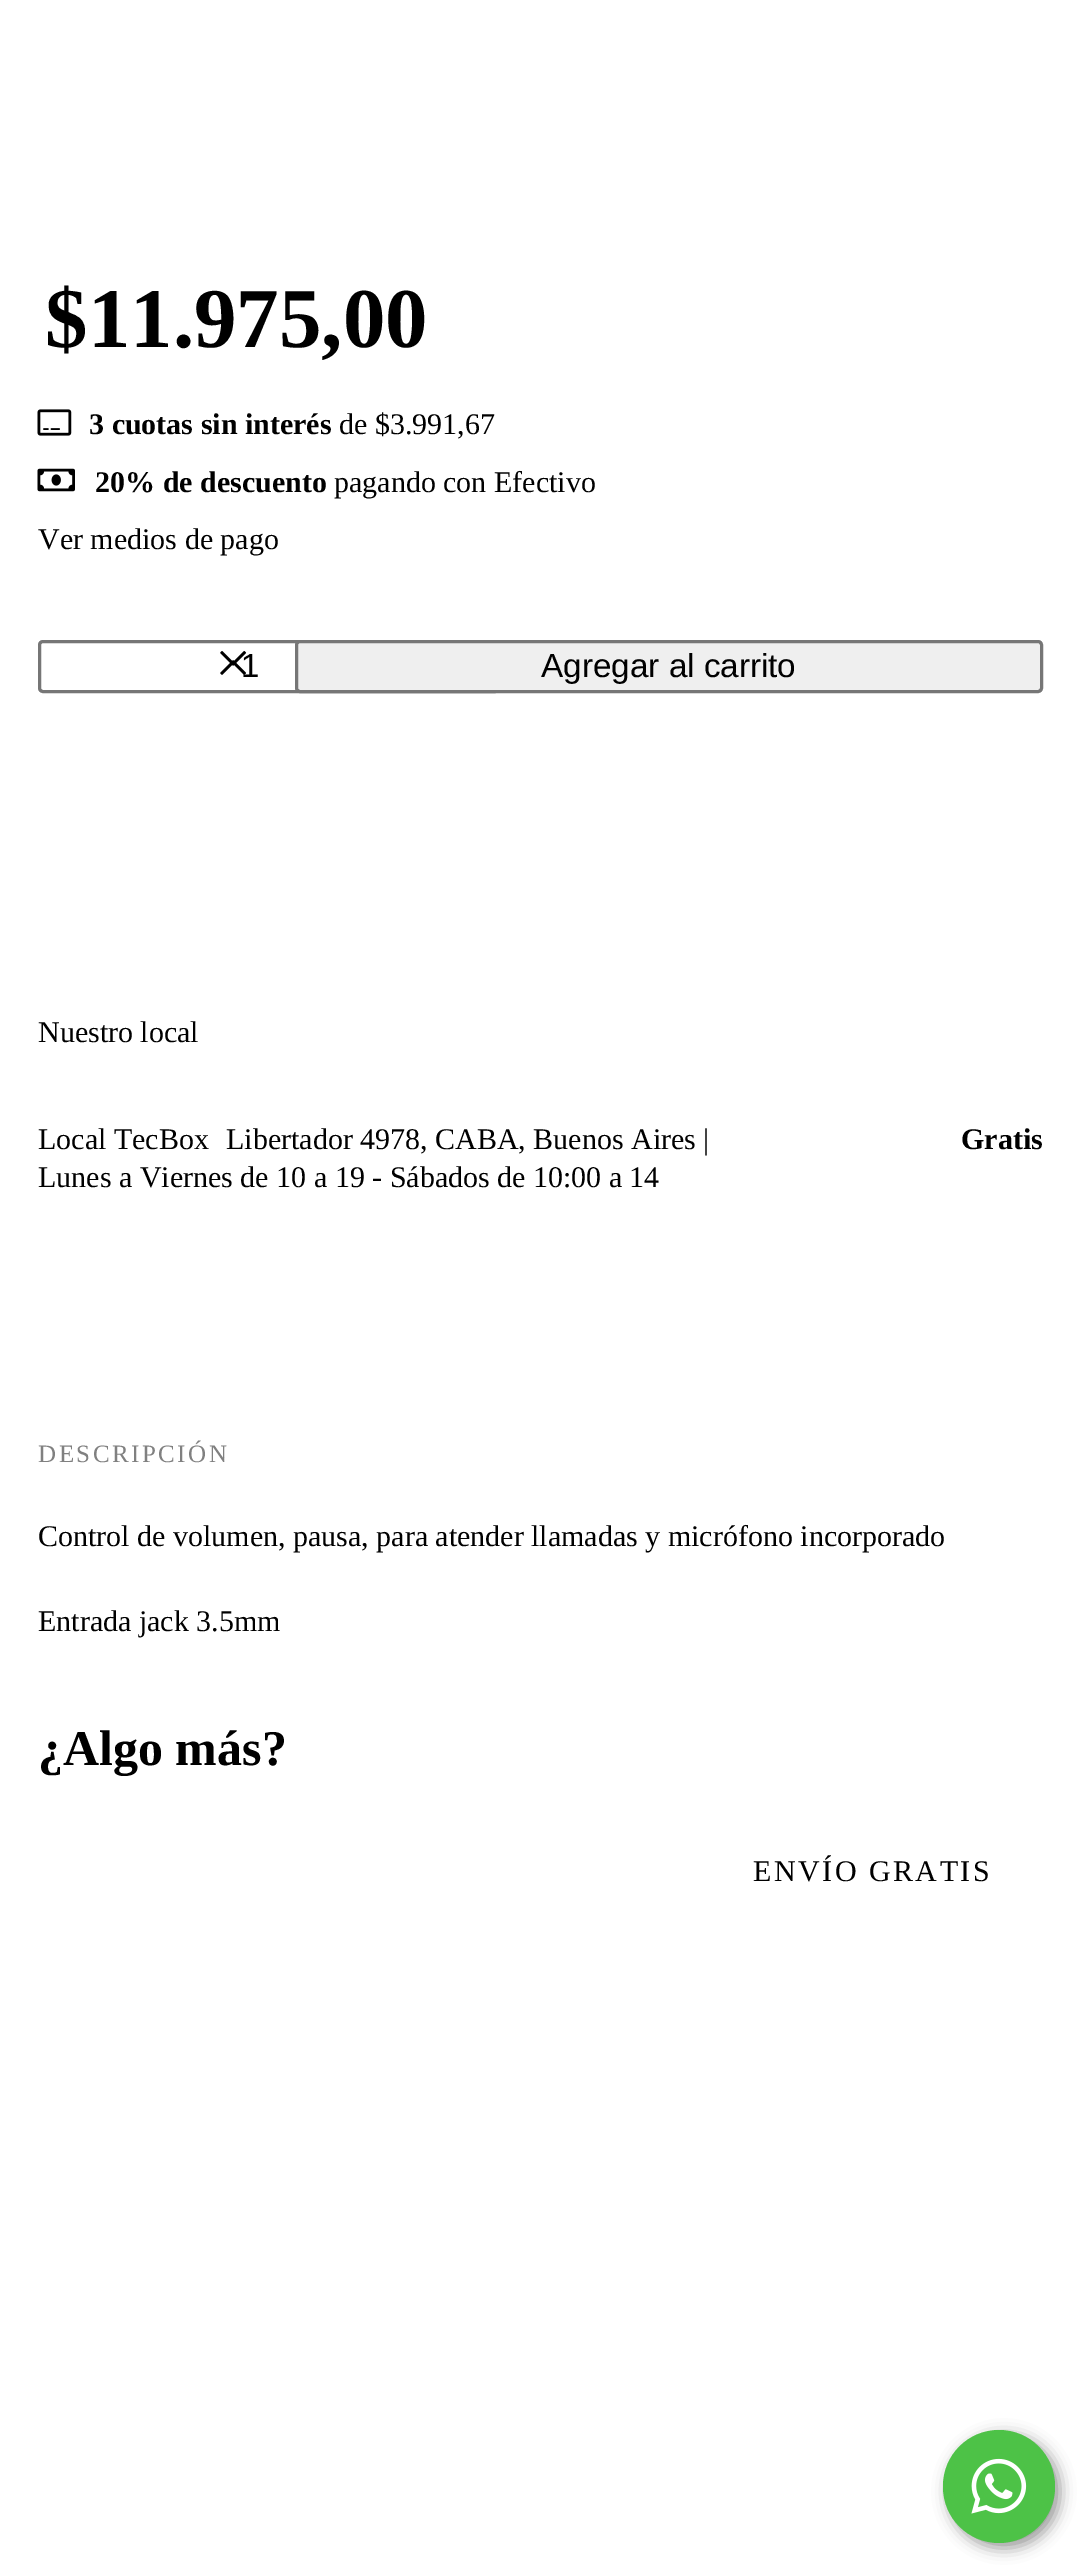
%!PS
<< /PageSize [1078 2567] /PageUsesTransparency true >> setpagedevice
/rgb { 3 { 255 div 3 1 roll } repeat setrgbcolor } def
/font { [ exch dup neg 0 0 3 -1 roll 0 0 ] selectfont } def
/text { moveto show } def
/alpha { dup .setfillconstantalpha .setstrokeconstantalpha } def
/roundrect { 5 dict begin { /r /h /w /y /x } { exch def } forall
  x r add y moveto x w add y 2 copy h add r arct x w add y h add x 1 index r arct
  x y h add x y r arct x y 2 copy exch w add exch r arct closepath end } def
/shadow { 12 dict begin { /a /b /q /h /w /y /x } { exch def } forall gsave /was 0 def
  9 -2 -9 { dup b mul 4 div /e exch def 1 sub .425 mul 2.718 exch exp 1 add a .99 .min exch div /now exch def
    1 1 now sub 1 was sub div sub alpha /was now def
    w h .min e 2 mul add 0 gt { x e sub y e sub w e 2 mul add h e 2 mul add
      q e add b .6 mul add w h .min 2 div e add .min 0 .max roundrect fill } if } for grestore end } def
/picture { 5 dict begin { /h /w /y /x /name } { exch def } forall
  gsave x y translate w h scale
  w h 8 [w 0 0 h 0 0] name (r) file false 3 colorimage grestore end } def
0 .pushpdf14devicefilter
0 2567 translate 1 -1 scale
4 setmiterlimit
255 255 255 rgb
0 0 1078 2567 rectfill
(img_01.rgb) 37 409 35 27 picture
(img_02.rgb) 37 468 38 24 picture
118 118 118 rgb
3 setlinewidth
39.5 641.5 459 50 3.5 roundrect stroke
239 239 239 rgb
296.5 641.5 745 50 3.5 roundrect gsave fill grestore
118 118 118 rgb
stroke
0 0 0 rgb
948 2435 112 113 56 7.5 0.4 shadow
77 194 71 rgb
943 2430 112 113 56 roundrect fill
(img_05.rgb) 971 2458 56 56 picture
/LiberationSerif-Bold 85 font
0 0 0 rgb
($11.975,00) 45 347 text
/LiberationSerif-Bold 30 font
(3 cuotas sin interés) 89 434 text
/LiberationSerif-Regular 30 font
(de $3.991,67) 339 434 text
/LiberationSerif-Bold 30 font
(20% de descuento) 95 492 text
/LiberationSerif-Regular 30 font
(pagando con Efectivo) 334 492 text
(Ver medios de pago) 38 549 text
/LiberationSans-Regular 33.25 font
(1) 241 677 text
(img_03.rgb) 220 651 27 15 picture
(img_04.rgb) 220 660 26 15 picture
(Agregar al carrito) 541 677 text
/LiberationSerif-Regular 30 font
(Nuestro local) 38 1042 text
(Local TecBox) 38 1149 text
(Libertador 4978, CABA, Buenos Aires |) 226 1149 text
(Lunes a Viernes de 10 a 19 - Sábados de 10:00 a 14) 38 1187 text
/LiberationSerif-Bold 30 font
(Gratis) 961 1149 text
/LiberationSerif-Regular 25 font
128 128 128 rgb
38 1462 moveto 2.5 0 (DESCRIPCIÓN) ashow
/LiberationSerif-Regular 30 font
0 0 0 rgb
(Control de volumen, pausa, para atender llamadas y micrófono incorporado) 38 1546 text
(Entrada jack 3.5mm) 38 1631 text
/LiberationSerif-Bold 50 font
(¿Algo más?) 38 1765 text
/LiberationSerif-Regular 30 font
753 1881 moveto 2.5 0 (ENVÍO GRATIS) ashow
.poppdf14devicefilter showpage
